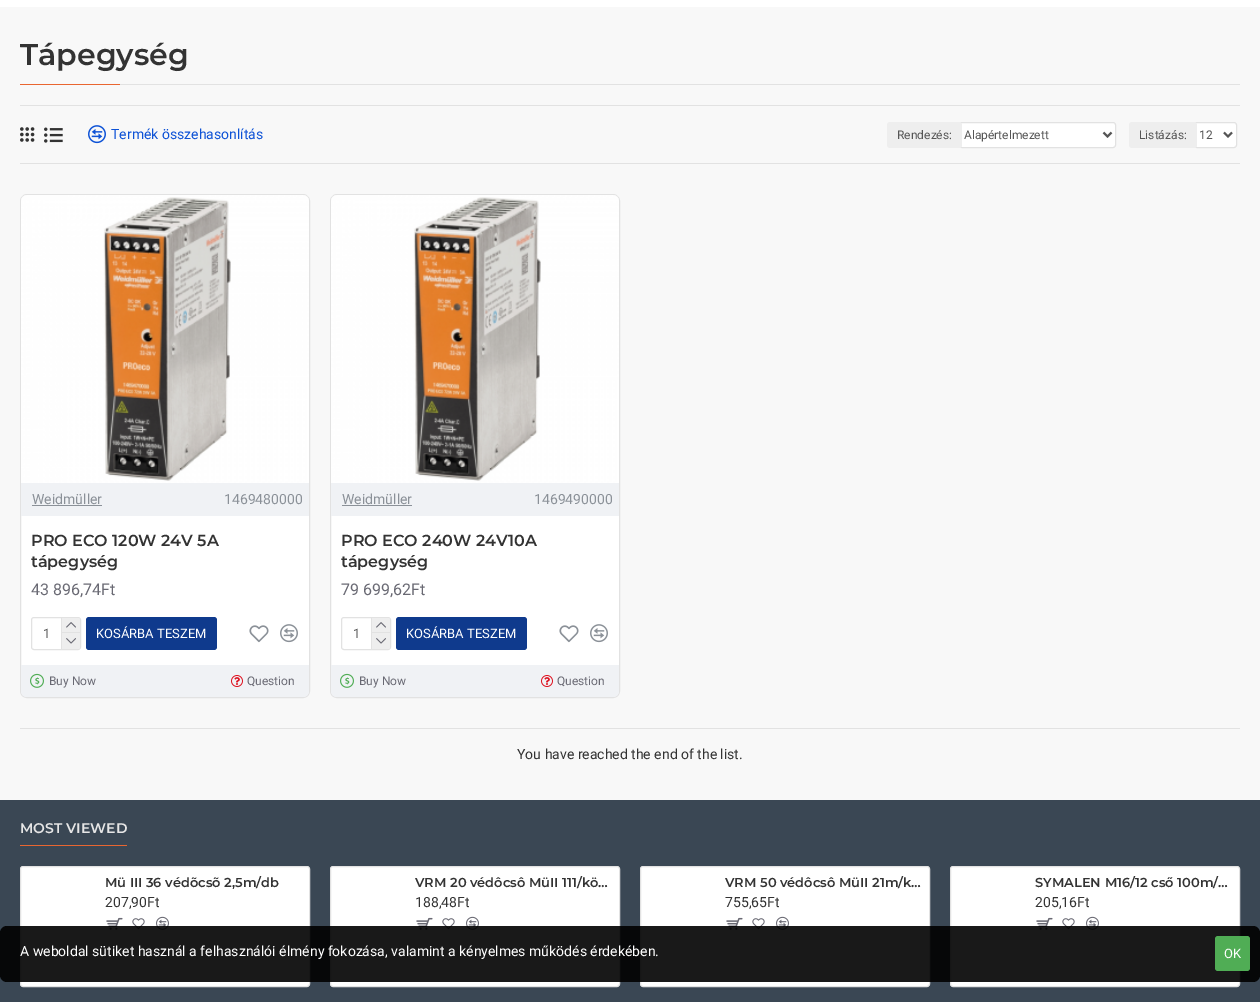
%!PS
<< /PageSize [1260 1002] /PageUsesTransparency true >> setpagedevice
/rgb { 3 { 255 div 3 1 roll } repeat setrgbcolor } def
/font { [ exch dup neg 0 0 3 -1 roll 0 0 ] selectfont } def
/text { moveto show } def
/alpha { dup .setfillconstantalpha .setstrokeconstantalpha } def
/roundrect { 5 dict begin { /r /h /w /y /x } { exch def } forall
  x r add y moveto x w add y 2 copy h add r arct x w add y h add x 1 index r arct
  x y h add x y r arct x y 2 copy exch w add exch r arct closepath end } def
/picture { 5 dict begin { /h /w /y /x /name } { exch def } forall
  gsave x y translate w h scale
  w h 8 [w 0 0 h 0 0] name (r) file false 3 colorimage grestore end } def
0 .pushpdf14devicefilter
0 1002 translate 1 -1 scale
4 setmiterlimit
248 248 248 rgb
0 0 1260 1002 rectfill
255 255 255 rgb
0 0 1260 7 rectfill
226 226 226 rgb
120 84 1120 1 rectfill
233 102 49 rgb
20 84 100 1 rectfill
226 226 226 rgb
20 105 1220 1 rectfill
20 163 1220 1 rectfill
(img_01.rgb) 20 127 15 15 picture
(img_02.rgb) 44 127 19 16 picture
(img_03.rgb) 88 125 18 19 picture
255 255 255 rgb
959.5 122.5 156 25 2.5 roundrect gsave fill grestore
226 226 226 rgb
stroke
238 238 238 rgb
887 122 75 26 3 roundrect fill
85 85 85 rgb
2 setlinewidth
1103.5 132.5 moveto 4 4 rlineto 4 -4 rlineto stroke
255 255 255 rgb
1194.5 122.5 42 25 2.5 roundrect gsave fill grestore
226 226 226 rgb
1 setlinewidth
stroke
238 238 238 rgb
1129 122 68 26 3 roundrect fill
85 85 85 rgb
2 setlinewidth
1224 132.5 moveto 4 4 rlineto 4 -4 rlineto stroke
255 255 255 rgb
20.5 194.5 289 503 6.5 roundrect gsave fill grestore
226 226 226 rgb
1 setlinewidth
stroke
(img_04.rgb) 21 195 288 288 picture
240 242 245 rgb
21 483 288 33 rectfill
139 145 152 rgb
32 505 70 1 rectfill
226 226 226 rgb
31.5 617.5 49 32 2.5 roundrect stroke
61 618 1 31 rectfill
238 238 238 rgb
62 618 moveto 16 0 rlineto 1 0 2 1 2 2 rcurveto 0 12 rlineto -18 0 rlineto closepath fill
226 226 226 rgb
62 632 18 1 rectfill
(img_05.rgb) 66 622 10 6 picture
238 238 238 rgb
62 633 moveto 18 0 rlineto 0 14 rlineto 0 1 -1 2 -2 2 rcurveto -16 0 rlineto closepath fill
(img_06.rgb) 66 638 10 6 picture
15 58 141 rgb
86 617 131 33 3 roundrect fill
(img_07.rgb) 249 625 20 18 picture
(img_08.rgb) 280 624 18 19 picture
240 242 245 rgb
21 665 moveto 288 0 rlineto 0 26 rlineto 0 3.5 -2.5 6 -6 6 rcurveto -276 0 rlineto -3.5 0 -6 -2.5 -6 -6 rcurveto closepath fill
(img_09.rgb) 30 673 14 15 picture
(img_10.rgb) 231 675 12 12 picture
255 255 255 rgb
330.5 194.5 289 503 6.5 roundrect gsave fill grestore
226 226 226 rgb
stroke
(img_04.rgb) 331 195 288 288 picture
240 242 245 rgb
331 483 288 33 rectfill
139 145 152 rgb
342 505 70 1 rectfill
226 226 226 rgb
341.5 617.5 49 32 2.5 roundrect stroke
371 618 1 31 rectfill
238 238 238 rgb
372 618 moveto 16 0 rlineto 1 0 2 1 2 2 rcurveto 0 12 rlineto -18 0 rlineto closepath fill
226 226 226 rgb
372 632 18 1 rectfill
(img_11.rgb) 376 622 10 6 picture
238 238 238 rgb
372 633 moveto 18 0 rlineto 0 14 rlineto 0 1 -1 2 -2 2 rcurveto -16 0 rlineto closepath fill
(img_12.rgb) 376 638 10 6 picture
15 58 141 rgb
396 617 131 33 3 roundrect fill
(img_07.rgb) 559 625 20 18 picture
(img_08.rgb) 590 624 18 19 picture
240 242 245 rgb
331 665 moveto 288 0 rlineto 0 26 rlineto 0 3.5 -2.5 6 -6 6 rcurveto -276 0 rlineto -3.5 0 -6 -2.5 -6 -6 rcurveto closepath fill
(img_09.rgb) 340 673 14 15 picture
(img_10.rgb) 541 675 12 12 picture
226 226 226 rgb
20 728 1220 1 rectfill
58 71 84 rgb
0 800 1260 202 rectfill
233 102 49 rgb
20 845 107 1 rectfill
255 255 255 rgb
20.5 866.5 289 120 2.5 roundrect gsave fill grestore
226 226 226 rgb
stroke
(img_13.rgb) 106 917 17 13 picture
(img_14.rgb) 132 918 13 12 picture
(img_15.rgb) 156 916 13 14 picture
255 255 255 rgb
330.5 866.5 289 120 2.5 roundrect gsave fill grestore
226 226 226 rgb
stroke
(img_13.rgb) 416 917 17 13 picture
(img_14.rgb) 442 918 13 12 picture
(img_15.rgb) 466 916 13 14 picture
255 255 255 rgb
640.5 866.5 289 120 2.5 roundrect gsave fill grestore
226 226 226 rgb
stroke
(img_13.rgb) 726 917 17 13 picture
(img_14.rgb) 752 918 13 12 picture
(img_15.rgb) 776 916 13 14 picture
255 255 255 rgb
950.5 866.5 289 120 2.5 roundrect gsave fill grestore
226 226 226 rgb
stroke
(img_13.rgb) 1036 917 17 13 picture
(img_14.rgb) 1062 918 13 12 picture
(img_15.rgb) 1086 916 13 14 picture
0.9 alpha
0 0 0 rgb
0 926 1260 56 7 roundrect fill
1 alpha
80 173 85 rgb
1215 936 35 35 3 roundrect fill
/Montserrat-SemiBold 30 font
51 51 51 rgb
(Tápegység) 20 65 text
/Roboto-Regular 14 font
13 82 214 rgb
(Termék összehasonlítás) 111 139 text
/Roboto-Regular 12 font
85 85 85 rgb
(Rendezés:) 897 139 text
(Alapértelmezett) 964 139 text
(Listázás:) 1139 139 text
(12) 1199 139 text
/Roboto-Regular 14 font
139 145 152 rgb
(Weidmüller) 32 504 text
(1469480000) 224 504 text
/Montserrat-SemiBold 16 font
51 51 51 rgb
(PRO ECO 120W 24V 5A) 31 546 text
(tápegység) 31 567 text
/Roboto-Regular 16 font
105 105 115 rgb
(43 896,74Ft) 31 595 text
/Roboto-Regular 13 font
85 85 85 rgb
(1) 43 638 text
255 255 255 rgb
(KOSÁRBA TESZEM) 96 638 text
/Roboto-Regular 12 font
105 105 115 rgb
(Buy Now) 49 685 text
(Question) 247 685 text
/Roboto-Regular 14 font
139 145 152 rgb
(Weidmüller) 342 504 text
(1469490000) 534 504 text
/Montserrat-SemiBold 16 font
51 51 51 rgb
(PRO ECO 240W 24V10A) 341 546 text
(tápegység) 341 567 text
/Roboto-Regular 16 font
105 105 115 rgb
(79 699,62Ft) 341 595 text
/Roboto-Regular 13 font
85 85 85 rgb
(1) 353 638 text
255 255 255 rgb
(KOSÁRBA TESZEM) 406 638 text
/Roboto-Regular 12 font
105 105 115 rgb
(Buy Now) 359 685 text
(Question) 557 685 text
/Roboto-Regular 14 font
51 51 51 rgb
(You have reached the end of the list.) 517 759 text
/Montserrat-SemiBold 14 font
230 230 230 rgb
(MOST VIEWED) 20 833 text
/Montserrat-SemiBold 13 font
51 51 51 rgb
(Mü III 36 védõcsõ 2,5m/db) 105 887 text
/Roboto-Regular 14 font
(207,90Ft) 105 907 text
/Montserrat-SemiBold 13 font
(VRM 20 védôcsô MüII 111/kö…) 415 887 text
/Roboto-Regular 14 font
(188,48Ft) 415 907 text
/Montserrat-SemiBold 13 font
(VRM 50 védôcsô MüII 21m/k…) 725 887 text
/Roboto-Regular 14 font
(755,65Ft) 725 907 text
/Montserrat-SemiBold 13 font
(SYMALEN M16/12 cső 100m/…) 1035 887 text
/Roboto-Regular 14 font
(205,16Ft) 1035 907 text
255 255 255 rgb
(A weboldal sütiket használ a felhasználói élmény fokozása, valamint a kényelmes működés érdekében.) 20 956 text
/Roboto-Regular 13 font
(OK) 1224 958 text
.poppdf14devicefilter showpage
